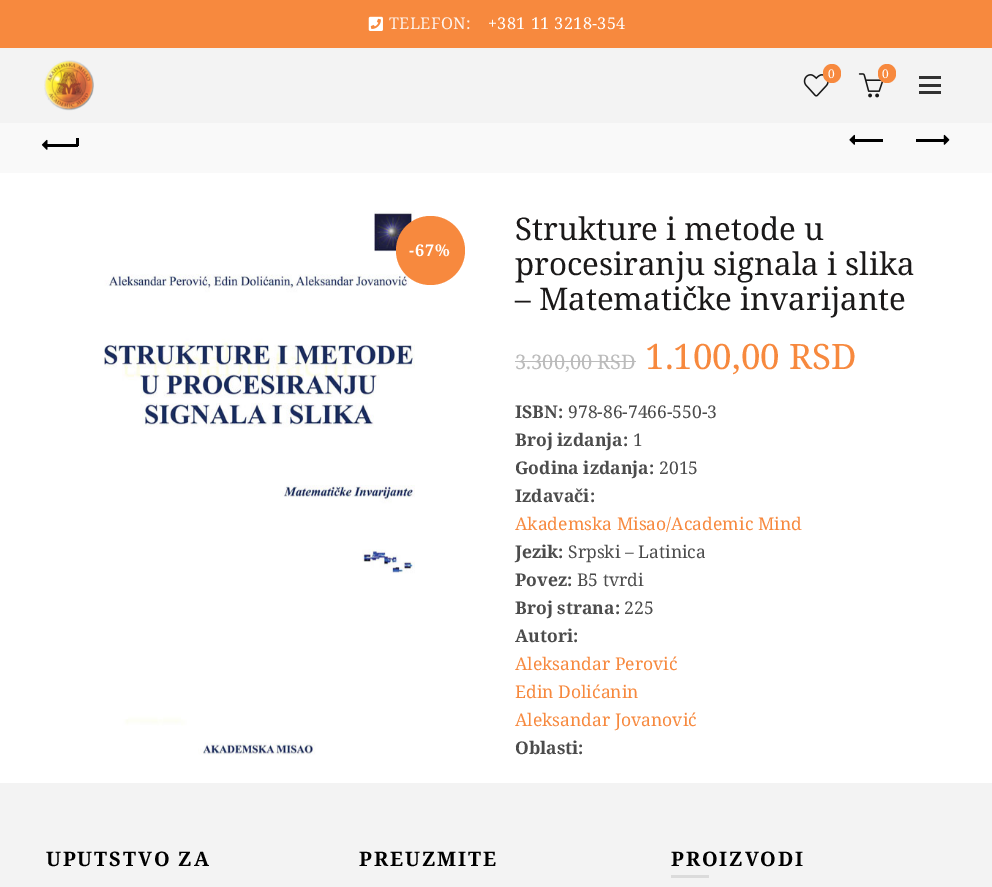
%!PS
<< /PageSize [992 887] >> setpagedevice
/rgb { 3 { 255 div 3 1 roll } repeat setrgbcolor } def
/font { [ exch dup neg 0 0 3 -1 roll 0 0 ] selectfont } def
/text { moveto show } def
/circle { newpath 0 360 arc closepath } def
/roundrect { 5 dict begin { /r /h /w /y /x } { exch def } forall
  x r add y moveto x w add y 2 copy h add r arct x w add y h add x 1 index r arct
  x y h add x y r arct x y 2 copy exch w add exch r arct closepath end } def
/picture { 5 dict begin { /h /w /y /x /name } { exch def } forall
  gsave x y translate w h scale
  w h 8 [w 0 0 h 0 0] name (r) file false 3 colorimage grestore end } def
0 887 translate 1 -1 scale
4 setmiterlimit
255 255 255 rgb
0 0 992 887 rectfill
247 137 62 rgb
0 0 992 48 rectfill
(img_01.rgb) 368 16 15 15 picture
243 243 243 rgb
0 48 992 75 rectfill
(img_02.rgb) 44 60 50 51 picture
(img_03.rgb) 803 74 26 23 picture
247 137 62 rgb
823 64 18 19 9 roundrect fill
(img_04.rgb) 858 73 25 25 picture
878 64 18 19 9 roundrect fill
49 49 49 rgb
919 84 22 3 rectfill
919 76 22 3 rectfill
919 91 22 3 rectfill
249 249 249 rgb
0 123 992 50 rectfill
0 0 0 rgb
46 144 32 3 rectfill
(img_05.rgb) 41 139 7 11 picture
76 138 3 8 rectfill
854 139 29 3 rectfill
(img_06.rgb) 849 134 6 11 picture
916 139 29 3 rectfill
(img_07.rgb) 943 134 7 11 picture
(img_08.rgb) 104 210 311 545 picture
247 137 62 rgb
430.5 250.5 34.5 circle fill
187 187 187 rgb
515 361 121 1 rectfill
243 243 243 rgb
0 783 992 104 rectfill
219 219 219 rgb
671 875 38 3 rectfill
/NotoSerif-Regular 16.25 font
254 243 236 rgb
389 29 moveto 0.4 0 (TELEFON:) ashow
255 255 255 rgb
488 29 moveto 0.4 0 (+381 11 3218-354) ashow
/NotoSerif-Regular 12 font
(0) 828 78 text
(0) 882 78 text
/NotoSerif-Bold 16.25 font
409 256 moveto 1 0 (-67%) ashow
/NotoSerif-Regular 31.25 font
27 25 25 rgb
(Strukture i metode u) 515 240 text
(procesiranju signala i slika) 515 275 text
(– Matematičke invarijante) 515 310 text
/NotoSerif-Regular 20 font
187 187 187 rgb
(3.300,00 RSD) 515 369 text
/NotoSerif-Regular 35 font
247 137 62 rgb
(1.100,00 RSD) 645 369 text
/NotoSerif-Bold 17.5 font
76 76 76 rgb
(ISBN:) 515 418 text
/NotoSerif-Regular 17.5 font
(978-86-7466-550-3) 568 418 text
/NotoSerif-Bold 17.5 font
(Broj izdanja:) 515 446 text
/NotoSerif-Regular 17.5 font
(1) 633 446 text
/NotoSerif-Bold 17.5 font
(Godina izdanja:) 515 474 text
/NotoSerif-Regular 17.5 font
(2015) 659 474 text
/NotoSerif-Bold 17.5 font
(Izdavači:) 515 502 text
/NotoSerif-Regular 17.5 font
247 137 62 rgb
(Akademska Misao/Academic Mind) 515 530 text
/NotoSerif-Bold 17.5 font
76 76 76 rgb
(Jezik:) 515 558 text
/NotoSerif-Regular 17.5 font
(Srpski – Latinica) 568 558 text
/NotoSerif-Bold 17.5 font
(Povez:) 515 586 text
/NotoSerif-Regular 17.5 font
(B5 tvrdi) 577 586 text
/NotoSerif-Bold 17.5 font
(Broj strana:) 515 614 text
/NotoSerif-Regular 17.5 font
(225) 624 614 text
/NotoSerif-Bold 17.5 font
(Autori:) 515 642 text
/NotoSerif-Regular 17.5 font
247 137 62 rgb
(Aleksandar Perović) 515 670 text
(Edin Dolićanin) 515 698 text
(Aleksandar Jovanović) 515 726 text
/NotoSerif-Bold 17.5 font
76 76 76 rgb
(Oblasti:) 515 754 text
/NotoSerif-Bold 20 font
0 0 0 rgb
46 866 moveto 1.9 0 (UPUTSTVO ZA) ashow
359 866 moveto 1.9 0 (PREUZMITE) ashow
671 866 moveto 1.9 0 (PROIZVODI) ashow
showpage
